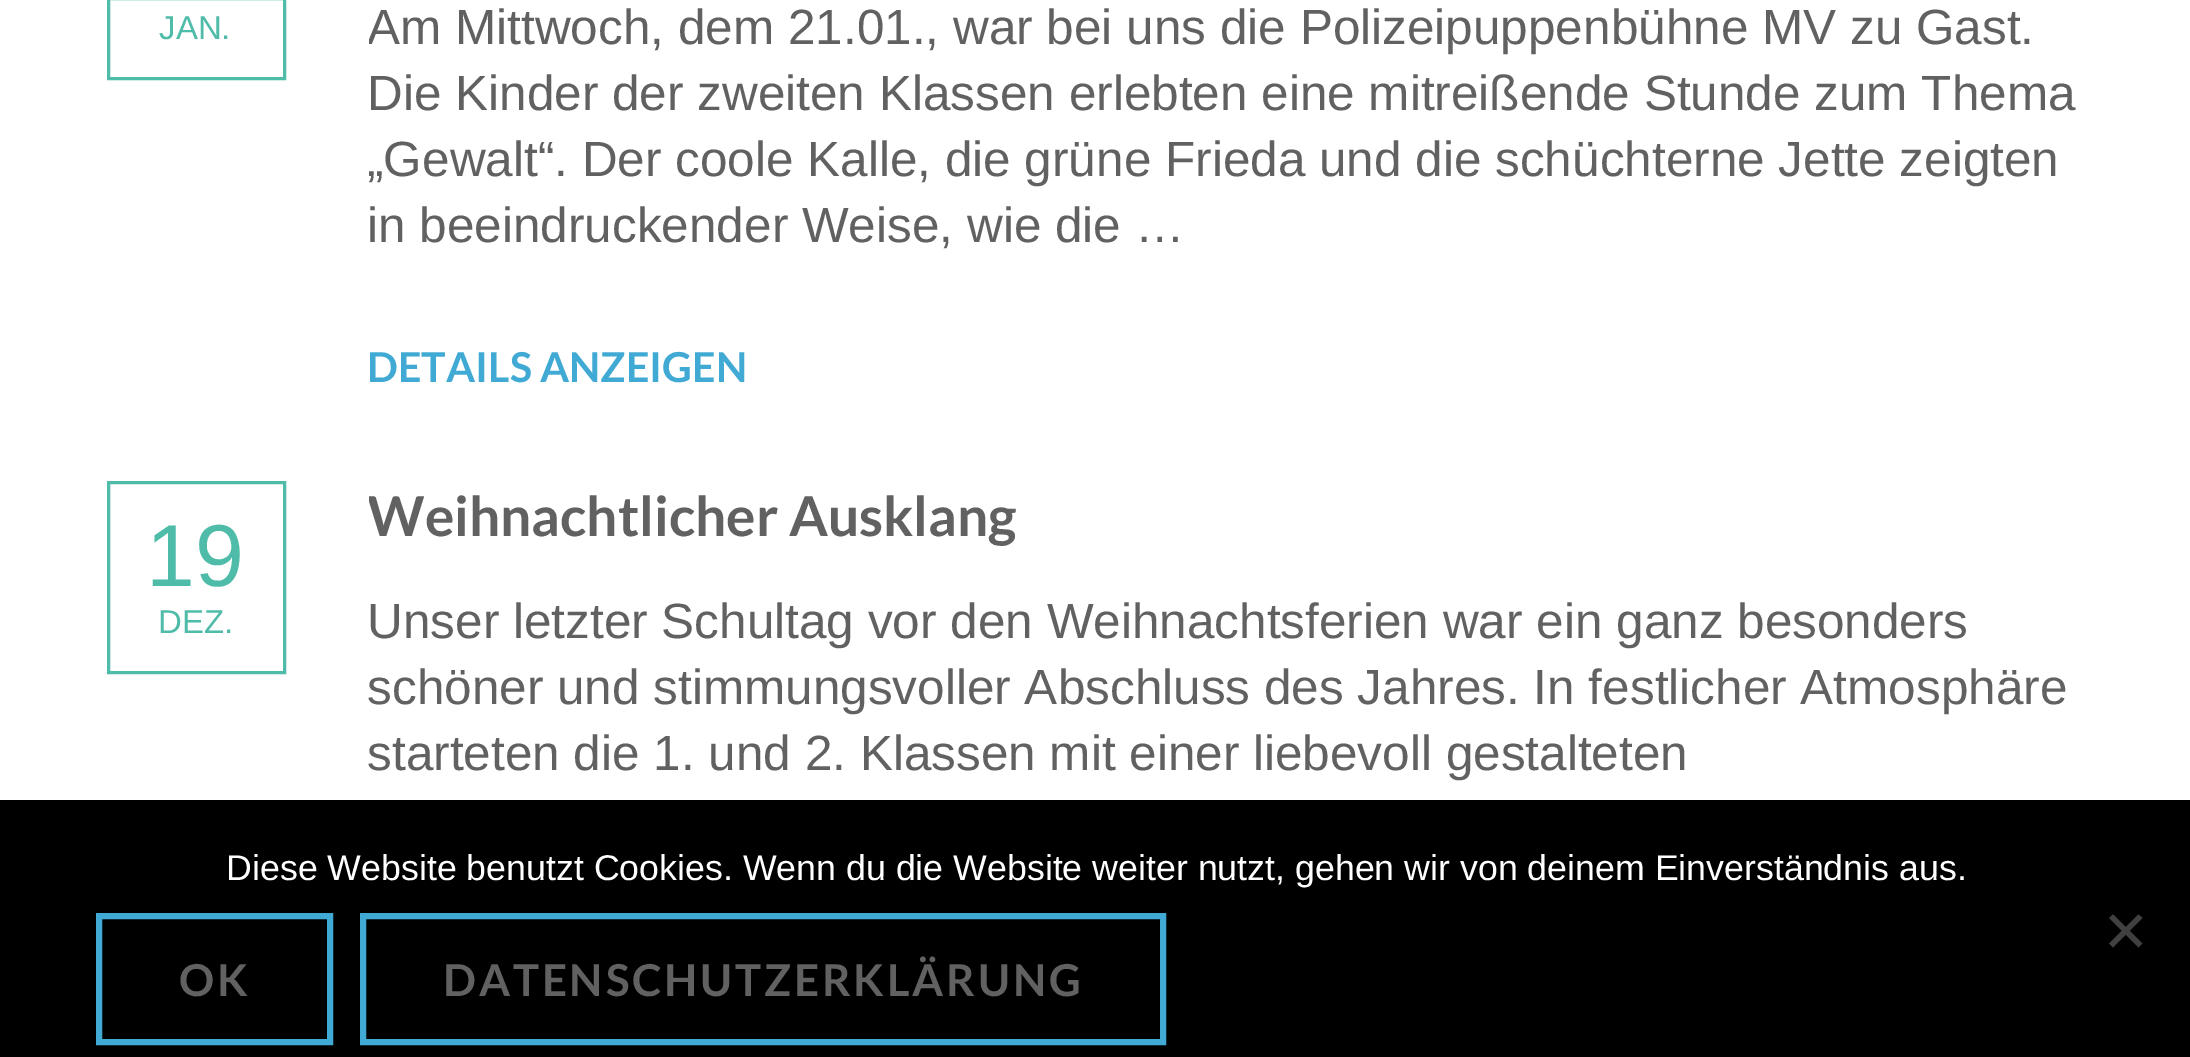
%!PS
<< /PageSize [2190 1057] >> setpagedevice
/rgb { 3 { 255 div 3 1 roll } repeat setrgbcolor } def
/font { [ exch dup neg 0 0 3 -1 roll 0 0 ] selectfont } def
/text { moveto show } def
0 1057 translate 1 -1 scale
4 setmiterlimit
255 255 255 rgb
0 0 2190 1057 rectfill
79 187 169 rgb
3 setlinewidth
108.5 -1.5 176 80 rectstroke
108.5 482.5 176 190 rectstroke
0 0 0 rgb
0 800 2190 257 rectfill
64 64 64 rgb
2138.5 914.5 moveto 4 3.5 rlineto -29.5 29.5 rlineto -4 -4 rlineto closepath fill
2109 918 moveto 4 -3.5 rlineto 29.5 29 rlineto -4 4 rlineto closepath fill
65 170 212 rgb
6 setlinewidth
99 916 231 126 rectstroke
363 916 800 126 rectstroke
/LiberationSans-Regular 33 font
79 187 169 rgb
(JAN.) 159 39 text
gsave
369 0 1718 399 rectclip
/LiberationSans-Regular 49.5 font
97 97 97 rgb
(Am Mittwoch, dem 21.01., war bei uns die Polizeipuppenbühne MV zu Gast.) 367 44 text
grestore
/LiberationSans-Regular 49.5 font
97 97 97 rgb
(Die Kinder der zweiten Klassen erlebten eine mitreißende Stunde zum Thema) 367 110 text
(„Gewalt“. Der coole Kalle, die grüne Frieda und die schüchterne Jette zeigten) 367 176 text
(in beeindruckender Weise, wie die …) 367 242 text
/Lato-Bold 41.25 font
65 170 212 rgb
(DETAILS ANZEIGEN) 367 382 text
/LiberationSans-Regular 88 font
79 187 169 rgb
(19) 146 586 text
/LiberationSans-Regular 33 font
(DEZ.) 158 633 text
gsave
369 481 1718 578 rectclip
/Lato-Bold 55 font
97 97 97 rgb
(Weihnachtlicher Ausklang) 367 536 text
grestore
/LiberationSans-Regular 49.5 font
97 97 97 rgb
(Unser letzter Schultag vor den Weihnachtsferien war ein ganz besonders) 367 638 text
(schöner und stimmungsvoller Abschluss des Jahres. In festlicher Atmosphäre) 367 704 text
(starteten die 1. und 2. Klassen mit einer liebevoll gestalteten) 367 770 text
/LiberationSans-Regular 35.75 font
255 255 255 rgb
(Diese Website benutzt Cookies. Wenn du die Website weiter nutzt, gehen wir von deinem Einverständnis aus.) 226 880 text
/Lato-Bold 44 font
97 97 97 rgb
179 996 moveto 2.75 0 (OK) ashow
443 996 moveto 2.75 0 (DATENSCHUTZERKLÄRUNG) ashow
showpage
